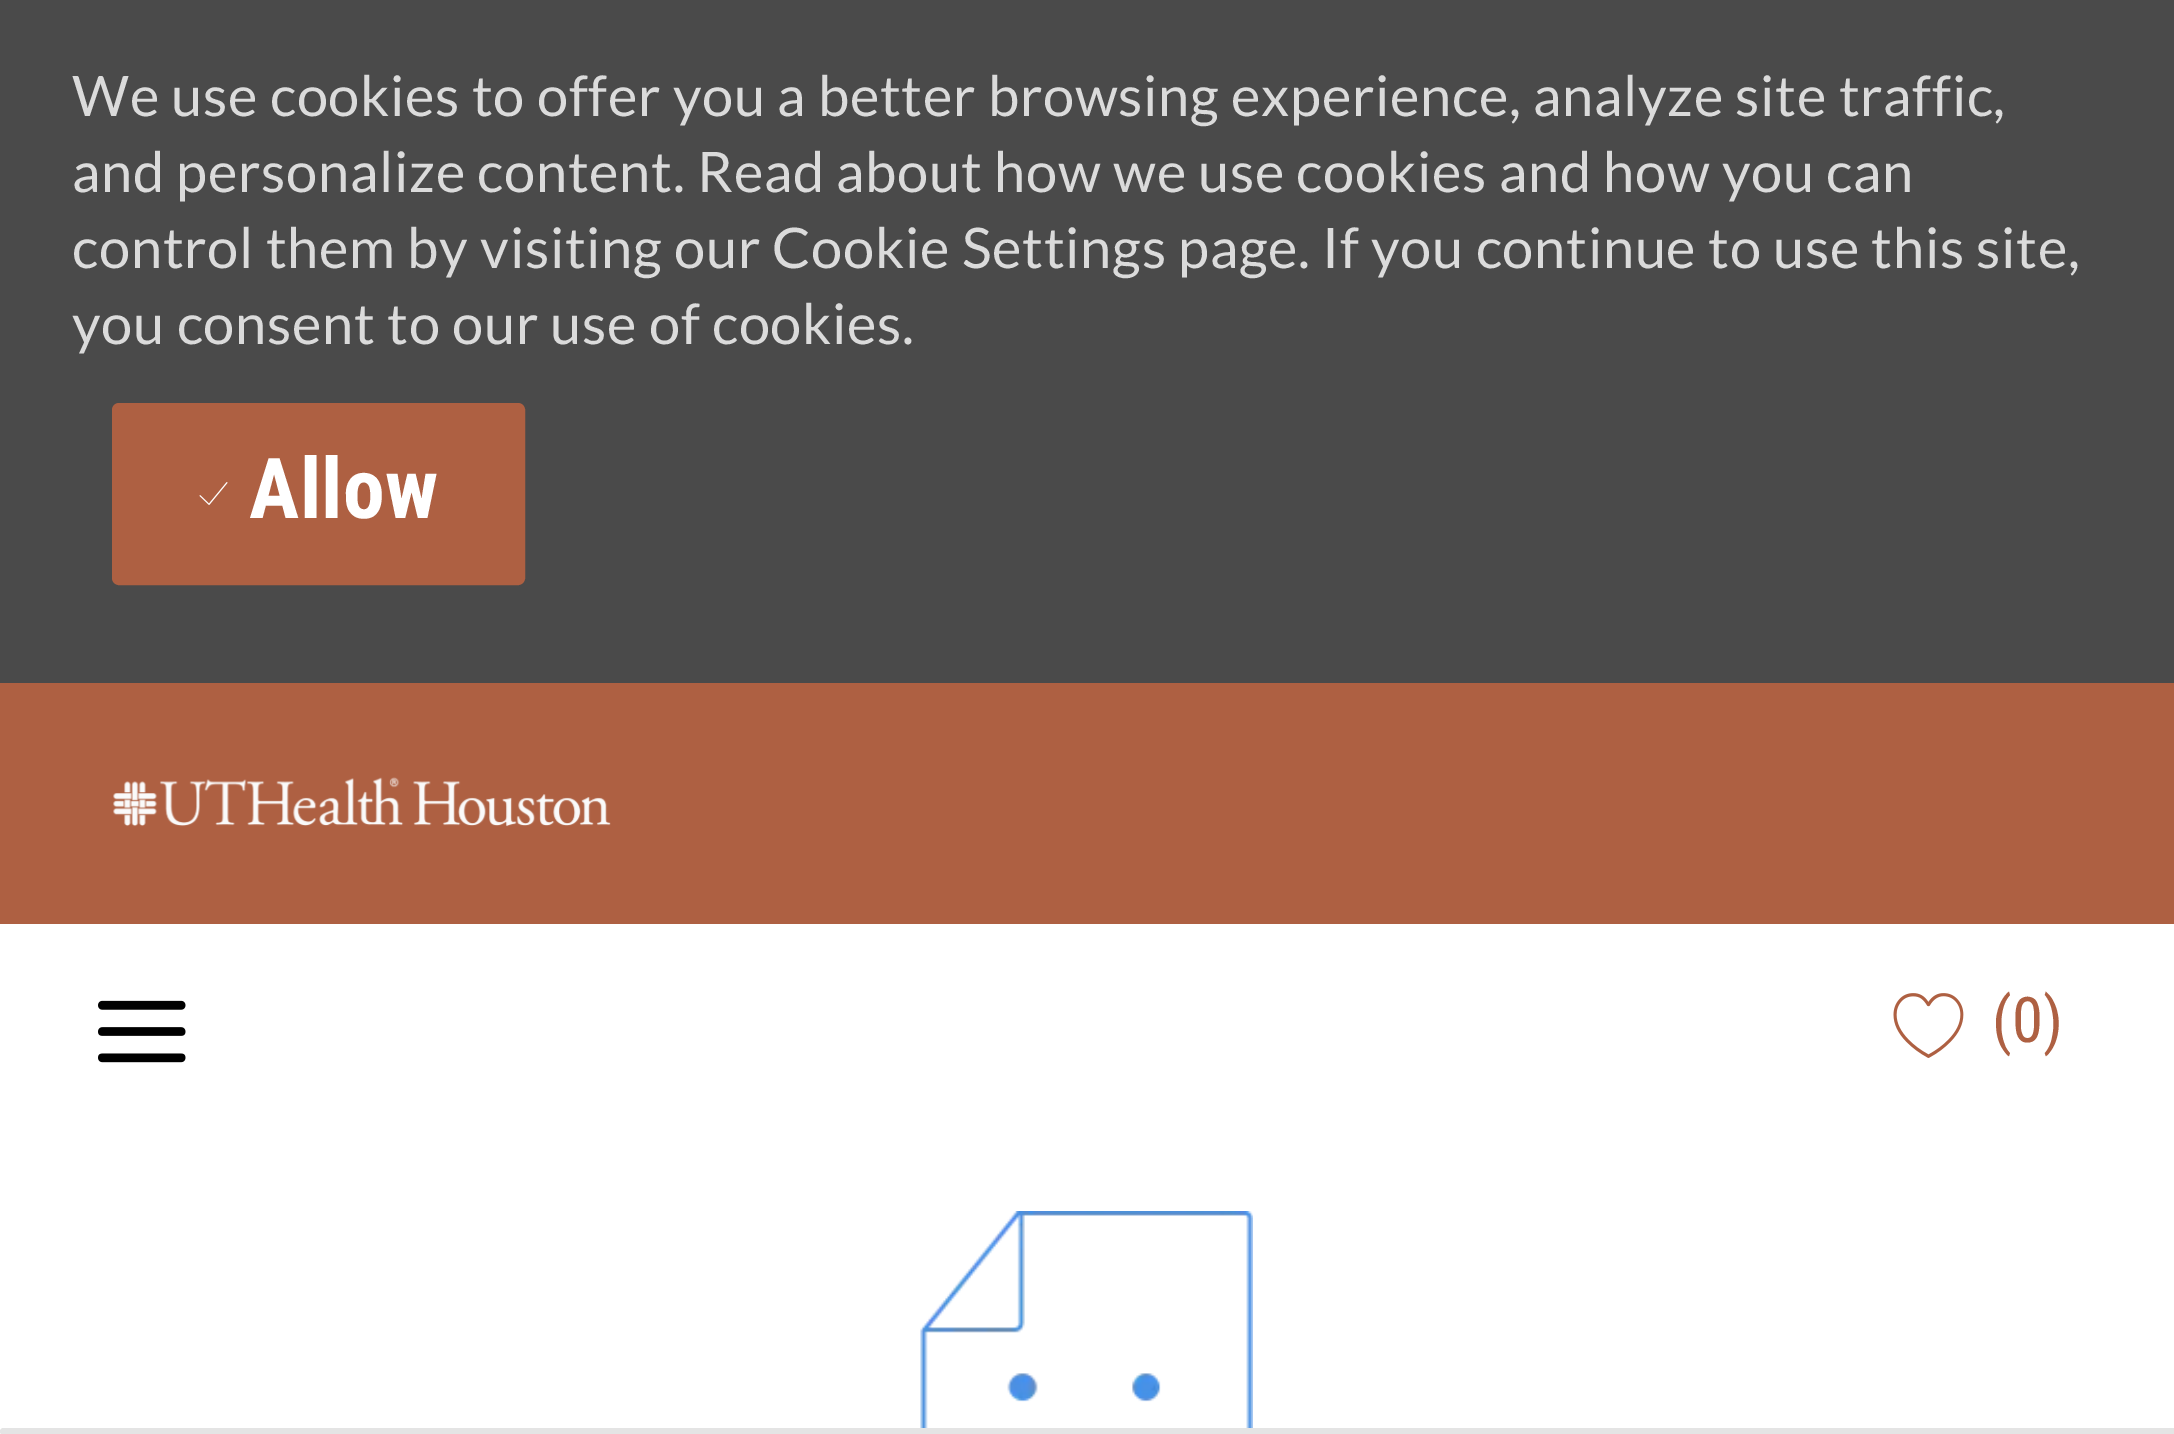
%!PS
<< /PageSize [2174 1434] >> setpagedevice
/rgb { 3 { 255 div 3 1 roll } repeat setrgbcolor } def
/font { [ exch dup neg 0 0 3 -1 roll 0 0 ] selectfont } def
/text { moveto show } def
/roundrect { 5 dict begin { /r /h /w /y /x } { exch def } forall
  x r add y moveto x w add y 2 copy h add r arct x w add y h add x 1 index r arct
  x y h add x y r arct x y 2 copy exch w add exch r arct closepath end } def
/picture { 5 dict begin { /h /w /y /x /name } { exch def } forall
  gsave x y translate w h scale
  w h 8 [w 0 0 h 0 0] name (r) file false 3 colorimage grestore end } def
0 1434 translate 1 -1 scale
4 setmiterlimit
255 255 255 rgb
0 0 2174 1434 rectfill
74 74 74 rgb
0 0 2174 683 rectfill
174 96 66 rgb
114 405 409 178 5 roundrect gsave fill grestore
4 setlinewidth
stroke
(img_01.rgb) 199 482 29 23 picture
0 683 2174 241 rectfill
(img_02.rgb) 113 777 498 50 picture
(img_03.rgb) 98 1000 88 63 picture
(img_04.rgb) 1893 993 71 65 picture
(img_05.rgb) 920 1211 333 217 picture
228 228 228 rgb
0 1428 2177 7 3.5 roundrect fill
/Lato-Regular 56 font
219 219 219 rgb
72 116 moveto 0.7 0 (We use cookies to offer you a better browsing experience, analyze site traffic,) ashow
72 192 moveto 0.7 0 (and personalize content. Read about how we use cookies and how you can) ashow
72 268 moveto 0.7 0 (control them by visiting our Cookie Settings page. If you continue to use this site,) ashow
72 344 moveto 0.7 0 (you consent to our use of cookies.) ashow
/RobotoCondensed-Bold 84 font
255 255 255 rgb
249 518 moveto 0.5 0 (Allow) ashow
/RobotoCondensed-Regular 63 font
174 96 66 rgb
(\(0\)) 1992 1042 text
showpage
